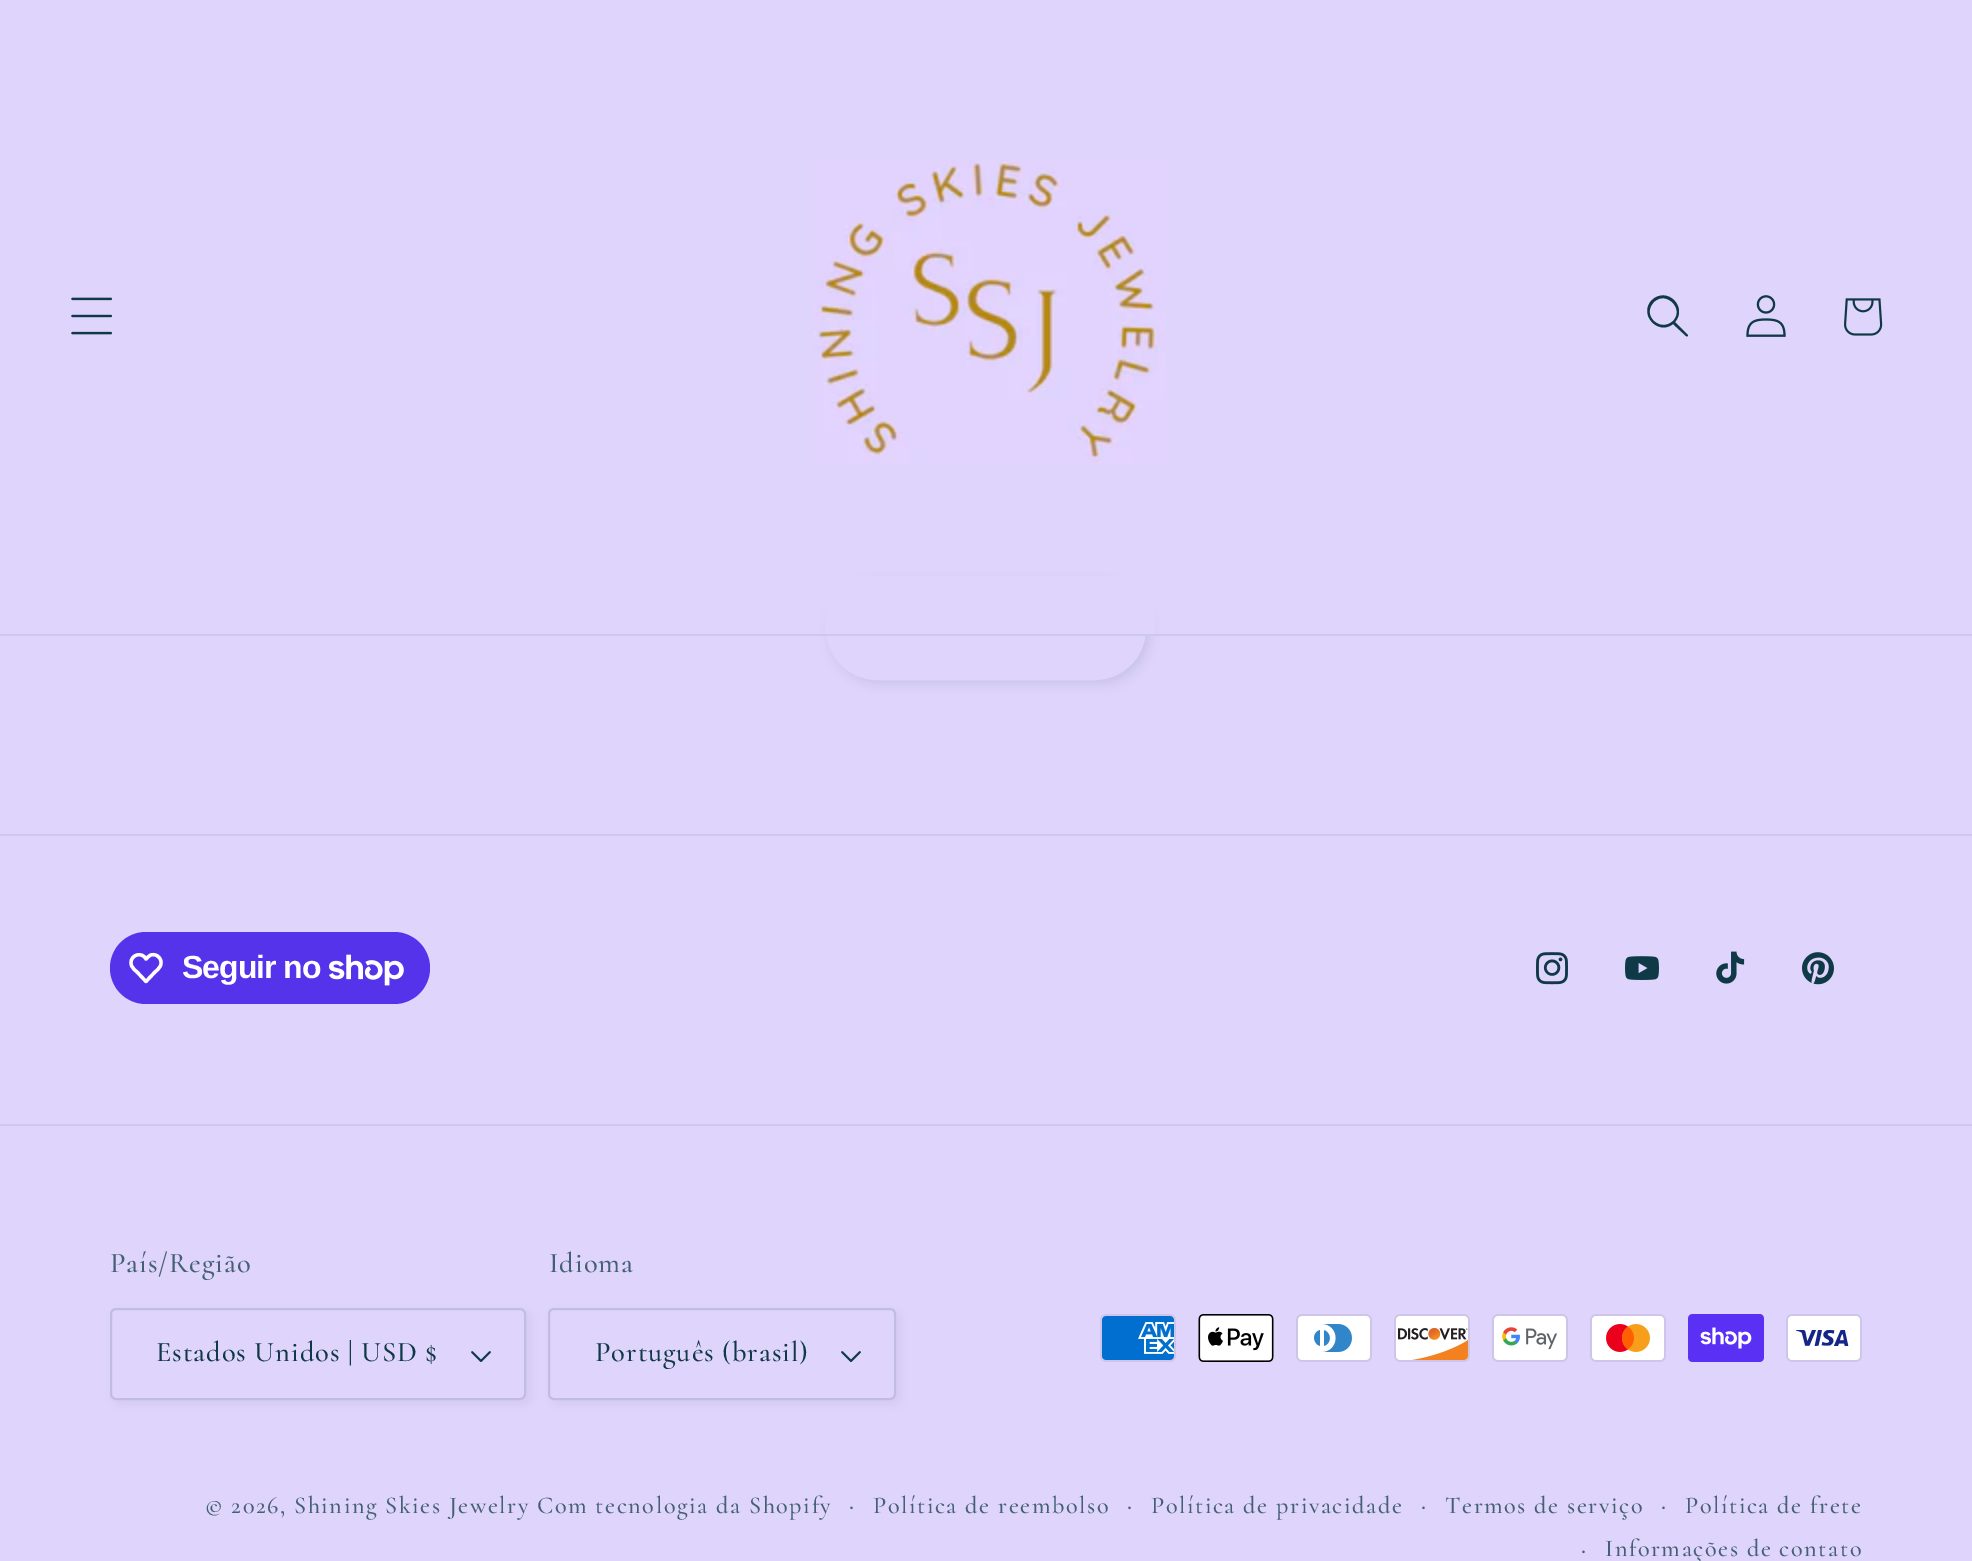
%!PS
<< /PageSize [1972 1561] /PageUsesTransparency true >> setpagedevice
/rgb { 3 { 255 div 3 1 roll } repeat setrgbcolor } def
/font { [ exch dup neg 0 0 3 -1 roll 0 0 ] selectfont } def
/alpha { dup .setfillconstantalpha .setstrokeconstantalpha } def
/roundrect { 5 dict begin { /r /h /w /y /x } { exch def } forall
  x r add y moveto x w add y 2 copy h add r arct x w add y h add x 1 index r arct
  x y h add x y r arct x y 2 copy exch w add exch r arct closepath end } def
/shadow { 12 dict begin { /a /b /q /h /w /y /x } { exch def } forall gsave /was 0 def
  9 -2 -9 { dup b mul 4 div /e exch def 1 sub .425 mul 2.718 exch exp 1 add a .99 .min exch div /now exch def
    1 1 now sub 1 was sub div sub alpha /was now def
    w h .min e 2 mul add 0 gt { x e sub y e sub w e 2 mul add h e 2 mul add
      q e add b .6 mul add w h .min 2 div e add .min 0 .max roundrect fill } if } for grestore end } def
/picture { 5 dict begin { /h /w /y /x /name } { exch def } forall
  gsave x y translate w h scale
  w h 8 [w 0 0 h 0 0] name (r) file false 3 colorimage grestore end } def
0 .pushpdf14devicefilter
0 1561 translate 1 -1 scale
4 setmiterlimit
223 212 251 rgb
0 0 1972 1561 rectfill
16 57 72 rgb
830 582 320 102 51 5 0.1 shadow
223 212 251 rgb
827 579 318 100 50 roundrect gsave fill grestore
2 setlinewidth
stroke
825 576 330 58 rectfill
206 200 237 rgb
0 634 1972 2 rectfill
(img_01.rgb) 71 297 41 38 picture
(img_02.rgb) 813 160 353 304 picture
16 57 72 rgb
1673 321 moveto -13 12 -32 -6 -19 -19 rcurveto 12 -12 31 7 19 19 rcurveto 1673 324 moveto -15 12 -35 -10 -21 -24 rcurveto 15 -14 36 7 23 22 rcurveto 13 13 rlineto 0 1 -1 2 -2 1 rcurveto closepath eofill
(img_03.rgb) 1746 295 40 42 picture
(img_04.rgb) 1844 298 39 38 picture
206 200 237 rgb
0 834 1972 2 rectfill
84 51 235 rgb
110 932 320 72 36 roundrect fill
255 255 255 rgb
3.3 setlinewidth
1 setlinejoin
144.5 957 moveto 1.5 2 rlineto 1.5 -1.5 3 -3.5 5 -4 rcurveto 6 -2 12 4.5 9.5 10.5 rcurveto -1 3 -4 5 -6 7 rcurveto -8.5 9 rlineto -8.5 -9 rlineto -2 -2 -5 -4 -6 -7 rcurveto -3 -8 7 -14.5 13 -8.5 rcurveto closepath stroke
(img_05.rgb) 329 954 75 32 picture
(img_06.rgb) 1536 952 32 33 picture
(img_07.rgb) 1625 956 34 24 picture
(img_08.rgb) 1716 951 29 33 picture
(img_09.rgb) 1802 952 32 33 picture
206 200 237 rgb
0 1124 1972 2 rectfill
16 57 72 rgb
114 1312 416 92 6 5 0.05 shadow
223 212 251 rgb
110 1308 416 92 6 roundrect fill
(img_10.rgb) 471 1351 20 11 picture
192 189 224 rgb
2 setlinewidth
0 setlinejoin
111 1309 414 90 5 roundrect stroke
16 57 72 rgb
552 1312 348 92 6 5 0.05 shadow
223 212 251 rgb
548 1308 348 92 6 roundrect fill
(img_10.rgb) 841 1351 20 11 picture
192 189 224 rgb
549 1309 346 90 5 roundrect stroke
(img_11.rgb) 1100 1314 76 48 picture
(img_12.rgb) 1198 1314 76 48 picture
(img_13.rgb) 1296 1314 76 48 picture
(img_14.rgb) 1394 1314 76 48 picture
(img_15.rgb) 1492 1314 76 48 picture
(img_16.rgb) 1590 1314 76 48 picture
(img_17.rgb) 1688 1314 76 48 picture
(img_18.rgb) 1786 1314 76 48 picture
/LiberationSans-Bold 32 font
255 255 255 rgb
182 978 moveto -1 0 (Seguir no) ashow
/Cormorant-Medium 28.5 font
68 96 117 rgb
110 1272 moveto 0.9 0 (País/Região) ashow
16 57 72 rgb
156 1361 moveto 0.9 0 (Estados Unidos | USD $) ashow
68 96 117 rgb
549 1272 moveto 0.9 0 (Idioma) ashow
16 57 72 rgb
595 1361 moveto 0.9 0 (Português \(brasil\)) ashow
/Cormorant-Medium 24.25 font
68 96 117 rgb
205 1513 moveto 1.55 0 (© 2026, Shining Skies Jewelry) ashow
537 1513 moveto 1.55 0 (Com tecnologia da Shopify) ashow
/Cormorant-Medium 26 font
849 1513 moveto 1.55 0 (·) ashow
/Cormorant-Medium 24.25 font
873 1513 moveto 1.55 0 (Política de reembolso) ashow
/Cormorant-Medium 26 font
1127 1513 moveto 1.55 0 (·) ashow
/Cormorant-Medium 24.25 font
1151 1513 moveto 1.55 0 (Política de privacidade) ashow
/Cormorant-Medium 26 font
1421 1513 moveto 1.55 0 (·) ashow
/Cormorant-Medium 24.25 font
1445 1513 moveto 1.55 0 (Termos de serviço) ashow
/Cormorant-Medium 26 font
1661 1513 moveto 1.55 0 (·) ashow
/Cormorant-Medium 24.25 font
1685 1513 moveto 1.55 0 (Política de frete) ashow
/Cormorant-Medium 26 font
1581 1557 moveto 1.55 0 (·) ashow
/Cormorant-Medium 24.25 font
1605 1556 moveto 1.55 0 (Informações de contato) ashow
.poppdf14devicefilter showpage
